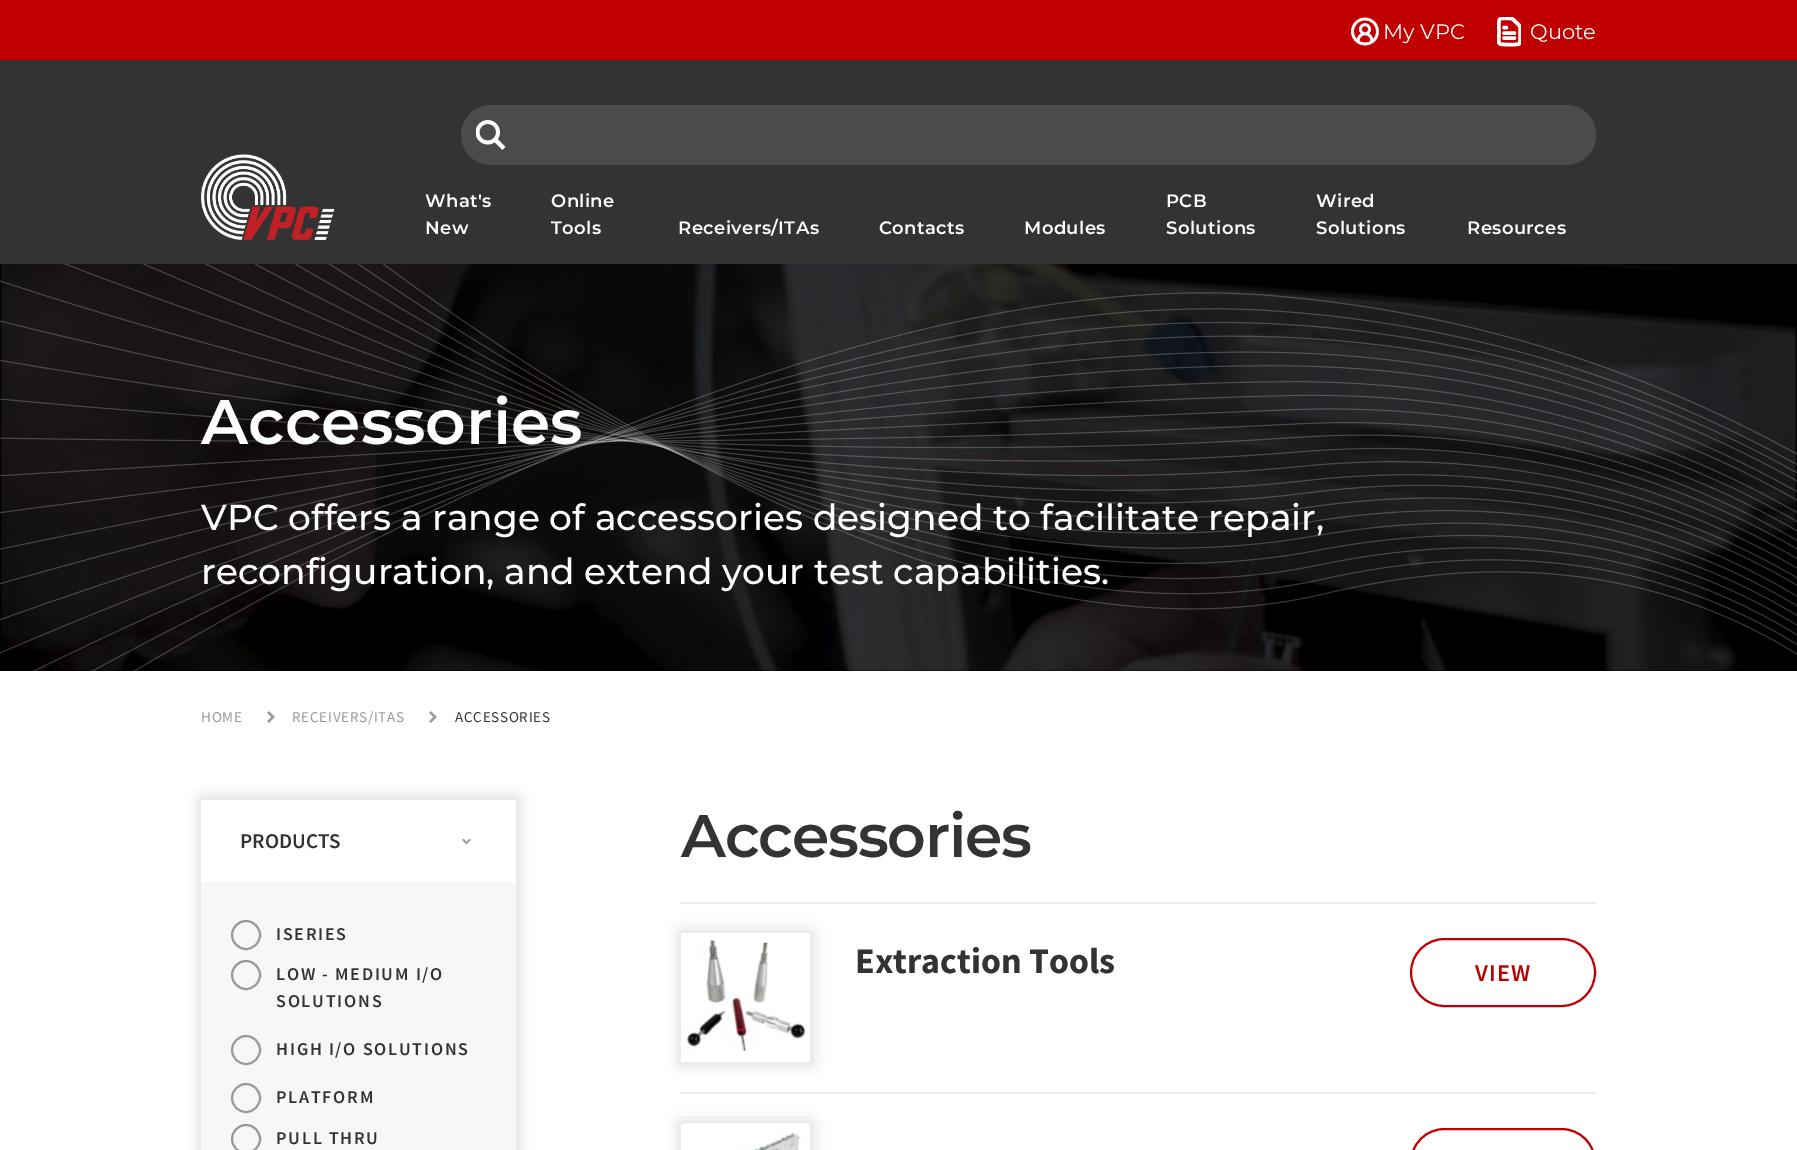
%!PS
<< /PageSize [1797 1150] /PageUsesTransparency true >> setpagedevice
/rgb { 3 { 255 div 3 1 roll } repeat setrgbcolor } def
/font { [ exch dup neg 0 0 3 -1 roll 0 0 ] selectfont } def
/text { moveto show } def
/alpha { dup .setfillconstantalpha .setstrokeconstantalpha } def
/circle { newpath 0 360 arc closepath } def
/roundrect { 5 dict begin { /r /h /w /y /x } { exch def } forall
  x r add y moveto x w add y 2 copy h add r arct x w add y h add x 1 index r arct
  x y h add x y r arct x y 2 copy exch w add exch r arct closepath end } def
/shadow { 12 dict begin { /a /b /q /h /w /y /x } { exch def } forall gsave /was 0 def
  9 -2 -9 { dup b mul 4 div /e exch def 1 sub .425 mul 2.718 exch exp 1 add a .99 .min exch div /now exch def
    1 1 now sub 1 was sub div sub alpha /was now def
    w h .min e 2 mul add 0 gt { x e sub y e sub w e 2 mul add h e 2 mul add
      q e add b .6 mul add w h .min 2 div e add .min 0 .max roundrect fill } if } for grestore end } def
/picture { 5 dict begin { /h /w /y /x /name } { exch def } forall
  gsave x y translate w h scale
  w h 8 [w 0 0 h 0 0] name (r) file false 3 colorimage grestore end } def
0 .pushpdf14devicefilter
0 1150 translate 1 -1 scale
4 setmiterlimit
255 255 255 rgb
0 0 1797 1150 rectfill
192 0 0 rgb
0 0 1797 60 rectfill
(img_01.rgb) 1351 17 28 29 picture
gsave
1497 17 24 30 rectclip
255 255 255 rgb
3.5 setlinewidth
1 setlinecap
1 setlinejoin
1512 18.5 moveto -15 0 -13 -3 -13 13 rcurveto 0 14 -3 13 10.5 13 rcurveto 5 0 rlineto 5 0 5.5 0 5.5 -5 rcurveto 0 -13.5 rlineto closepath 1514.5 33 moveto -10.5 0 rlineto 1514.5 38 moveto -10.5 0 rlineto 1506.5 27.5 moveto -2.5 0 rlineto stroke
grestore
51 51 51 rgb
0 60 1797 204 rectfill
(img_02.rgb) 201 154 134 86 picture
75 75 75 rgb
461 105 1135 60 30 roundrect fill
(img_03.rgb) 476 120 30 30 picture
0 0 0 rgb
0 670 1797 1 rectfill
(img_04.rgb) 0 264 1797 407 picture
(img_05.rgb) 0 264 1797 407 picture
(img_06.rgb) 267 711 8 12 picture
(img_06.rgb) 429 711 8 12 picture
gsave
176 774 moveto 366 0 rlineto 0 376 rlineto -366 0 rlineto closepath 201 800 moveto 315 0 rlineto 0 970 rlineto -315 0 rlineto closepath eoclip newpath
200 798 318 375 0 7.5 0.15 shadow
grestore
(img_07.rgb) 462 839 9 6 picture
247 247 247 rgb
201 882 315 268 rectfill
153 153 153 rgb
2 setlinewidth
246 935 14 circle stroke
246 975 14 circle stroke
246 1050 14 circle stroke
246 1098 14 circle stroke
246 1139 14 circle stroke
235 235 235 rgb
681 902 915 2 rectfill
gsave
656 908 moveto 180 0 rlineto 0 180 rlineto -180 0 rlineto closepath 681 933 moveto 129 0 rlineto 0 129 rlineto -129 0 rlineto closepath eoclip newpath
0 0 0 rgb
680 932 132 132 0 7.5 0.15 shadow
grestore
(img_08.rgb) 687 940 119 112 picture
192 0 0 rgb
1411 939 184 67 33.5 roundrect stroke
235 235 235 rgb
681 1092 915 2 rectfill
gsave
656 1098 moveto 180 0 rlineto 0 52 rlineto -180 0 rlineto closepath 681 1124 moveto 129 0 rlineto 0 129 rlineto -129 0 rlineto closepath eoclip newpath
0 0 0 rgb
680 1122 132 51 0 7.5 0.15 shadow
grestore
(img_09.rgb) 684 1123 124 27 picture
192 0 0 rgb
1411 1129 184 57 33.5 roundrect stroke
/Montserrat-Regular 21 font
255 255 255 rgb
(My VPC) 1383 39 text
(Quote) 1530 39 text
/Montserrat-SemiBold 18 font
425 207 moveto 0.4 0 (What's) ashow
425 234 moveto 0.4 0 (New) ashow
551 207 moveto 0.4 0 (Online) ashow
551 234 moveto 0.4 0 (Tools) ashow
678 234 moveto 0.4 0 (Receivers/ITAs) ashow
879 234 moveto 0.4 0 (Contacts) ashow
1024 234 moveto 0.4 0 (Modules) ashow
1166 207 moveto 0.4 0 (PCB) ashow
1166 234 moveto 0.4 0 (Solutions) ashow
1316 207 moveto 0.4 0 (Wired) ashow
1316 234 moveto 0.4 0 (Solutions) ashow
1467 234 moveto 0.4 0 (Resources) ashow
/Montserrat-SemiBold 63 font
(Accessories) 201 444 text
/Montserrat-Medium 36 font
(VPC offers a range of accessories designed to facilitate repair,) 201 530 text
(reconfiguration, and extend your test capabilities.) 201 584 text
/SourceSansPro-Regular 15 font
153 153 153 rgb
201 722 moveto 0.75 0 (HOME) ashow
292 722 moveto 0.75 0 (RECEIVERS/ITAS) ashow
51 51 51 rgb
455 722 moveto 0.75 0 (ACCESSORIES) ashow
/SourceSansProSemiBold-SemiBold 21 font
(PRODUCTS) 240 848 text
/SourceSansProSemiBold-SemiBold 18 font
276 940 moveto 1.75 0 (ISERIES) ashow
276 980 moveto 1.75 0 (LOW - MEDIUM I/O) ashow
276 1007 moveto 1.75 0 (SOLUTIONS) ashow
276 1055 moveto 1.75 0 (HIGH I/O SOLUTIONS) ashow
276 1103 moveto 1.75 0 (PLATFORM) ashow
276 1144 moveto 1.75 0 (PULL THRU) ashow
/Montserrat-SemiBold 60 font
681 857 moveto -1.25 0 (Accessories) ashow
/SourceSansPro-Bold 36 font
(Extraction Tools) 855 973 text
/SourceSansProSemiBold-SemiBold 24 font
192 0 0 rgb
1475 981 moveto 1 0 (VIEW) ashow
.poppdf14devicefilter showpage
